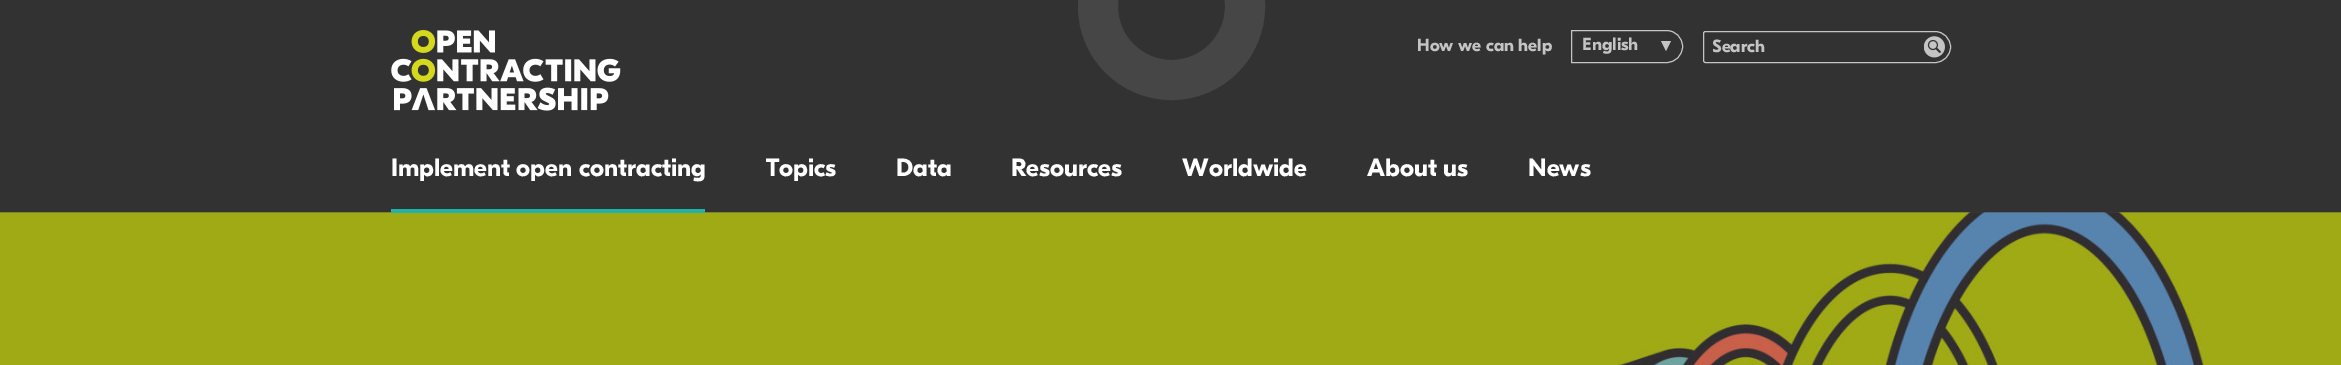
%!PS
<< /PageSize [2341 365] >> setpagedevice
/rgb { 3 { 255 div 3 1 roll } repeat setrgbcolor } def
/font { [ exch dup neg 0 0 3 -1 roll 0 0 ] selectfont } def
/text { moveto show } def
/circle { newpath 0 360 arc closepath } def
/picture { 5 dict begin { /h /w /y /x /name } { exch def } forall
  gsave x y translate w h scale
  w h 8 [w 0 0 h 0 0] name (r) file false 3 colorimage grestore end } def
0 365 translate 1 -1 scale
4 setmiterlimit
50 50 50 rgb
0 0 2341 365 rectfill
(img_01.rgb) 391 30 230 81 picture
70 70 70 rgb
40 setlinewidth
1171.5 6.5 73.5 circle stroke
196 196 196 rgb
1 setlinewidth
1571.5 30.5 moveto 95 0 rlineto 9 0 16 7 16 16 rcurveto 0 9 -7 16 -16 16 rcurveto -95 0 rlineto closepath stroke
1661 41 moveto 10 0 rlineto -5 10 rlineto closepath fill
1705.5 31.5 moveto 229.5 0 rlineto 8.5 0 15.5 7 15.5 15.5 rcurveto 0 8.5 -7 15.5 -15.5 15.5 rcurveto -229.5 0 rlineto -1 0 -2 -1 -2 -2 rcurveto 0 -27 rlineto 0 -1 1 -2 2 -2 rcurveto closepath stroke
(img_02.rgb) 1924 36 21 22 picture
(img_03.rgb) 0 212 2341 153 picture
35 178 167 rgb
391 209 314 4 rectfill
/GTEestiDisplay-Bold 17.5 font
196 196 196 rgb
(How we can help) 1417 51 text
/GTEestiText-Bold 17.5 font
(English) 1582 50 text
gsave
1713 38 202 21 rectclip
/GTEestiDisplay-Bold 17.5 font
(Search) 1712 52 text
grestore
/GTEestiDisplay-Bold 25 font
255 255 255 rgb
(Implement open contracting) 391 176 text
(Topics) 766 176 text
(Data) 896 176 text
(Resources) 1011 176 text
(Worldwide) 1182 176 text
(About us) 1367 176 text
(News) 1528 176 text
showpage
